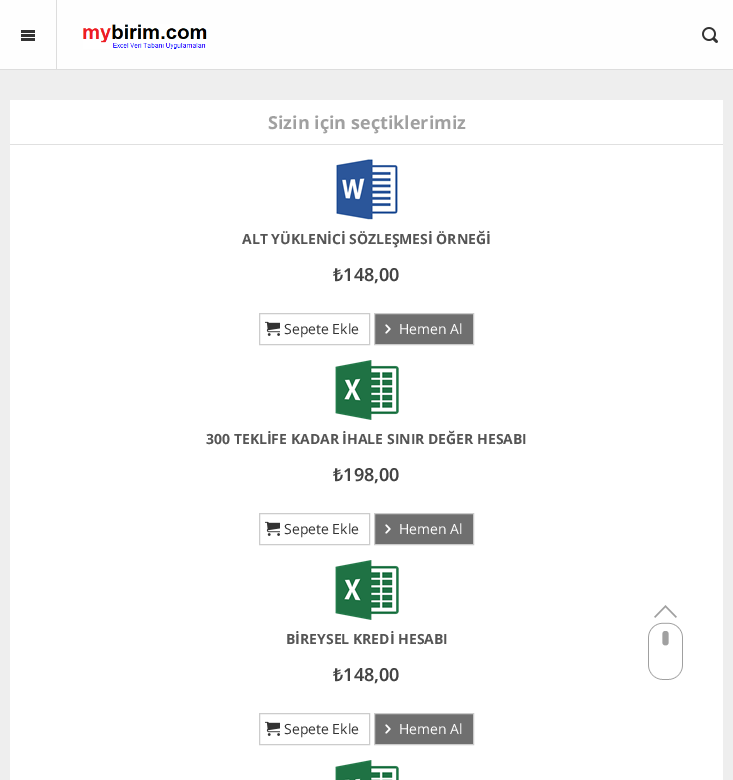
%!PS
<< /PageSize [733 780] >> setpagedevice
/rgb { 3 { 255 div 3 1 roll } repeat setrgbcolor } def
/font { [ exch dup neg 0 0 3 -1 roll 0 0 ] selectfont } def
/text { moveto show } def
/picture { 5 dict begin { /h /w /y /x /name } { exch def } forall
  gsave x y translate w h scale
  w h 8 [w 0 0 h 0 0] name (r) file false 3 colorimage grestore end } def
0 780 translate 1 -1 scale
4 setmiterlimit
238 238 238 rgb
0 0 733 780 rectfill
254 254 254 rgb
0 0 733 69 rectfill
221 221 221 rgb
0 69 733 1 rectfill
56 0 1 69 rectfill
(img_01.rgb) 21 30 14 11 picture
(img_02.rgb) 83 24 124 25 picture
(img_03.rgb) 702 27 16 16 picture
255 255 255 rgb
10 100 713 680 rectfill
224 224 224 rgb
10 144 713 1 rectfill
(img_04.rgb) 336 159 62 61 picture
204 204 204 rgb
259.5 313.5 110 31 rectstroke
(img_05.rgb) 265 321 15 15 picture
111 111 111 rgb
374.5 313.5 moveto 99 0 rlineto 0 31 rlineto -99 0 rlineto closepath gsave fill grestore
204 204 204 rgb
stroke
(img_06.rgb) 385 324 6 10 picture
(img_07.rgb) 335 360 64 60 picture
259.5 513.5 110 31 rectstroke
(img_05.rgb) 265 521 15 15 picture
111 111 111 rgb
374.5 513.5 moveto 99 0 rlineto 0 31 rlineto -99 0 rlineto closepath gsave fill grestore
204 204 204 rgb
stroke
(img_06.rgb) 385 524 6 10 picture
(img_07.rgb) 335 560 64 60 picture
259.5 713.5 110 31 rectstroke
(img_05.rgb) 265 721 15 15 picture
111 111 111 rgb
374.5 713.5 moveto 99 0 rlineto 0 31 rlineto -99 0 rlineto closepath gsave fill grestore
204 204 204 rgb
stroke
(img_06.rgb) 385 724 6 10 picture
(img_08.rgb) 335 760 64 20 picture
(img_09.rgb) 648 605 35 75 picture
/OpenSans-Bold 18 font
160 160 160 rgb
(Sizin için seçtiklerimiz) 268 129 text
/OpenSans-Bold 14 font
85 85 85 rgb
(ALT YÜKLENİCİ SÖZLEŞMESİ ÖRNEĞİ) 242 244 text
/NotoSans-SemiBold 18 font
68 68 68 rgb
(₺148,00) 333 281 text
/OpenSans-Regular 14 font
51 51 51 rgb
(Sepete Ekle) 284 334 text
255 255 255 rgb
(Hemen Al) 399 334 text
/OpenSans-Bold 14 font
85 85 85 rgb
(300 TEKLİFE KADAR İHALE SINIR DEĞER HESABI) 206 444 text
/NotoSans-SemiBold 18 font
68 68 68 rgb
(₺198,00) 333 481 text
/OpenSans-Regular 14 font
51 51 51 rgb
(Sepete Ekle) 284 534 text
255 255 255 rgb
(Hemen Al) 399 534 text
/OpenSans-Bold 14 font
85 85 85 rgb
(BİREYSEL KREDİ HESABI) 286 644 text
/NotoSans-SemiBold 18 font
68 68 68 rgb
(₺148,00) 333 681 text
/OpenSans-Regular 14 font
51 51 51 rgb
(Sepete Ekle) 284 734 text
255 255 255 rgb
(Hemen Al) 399 734 text
showpage
